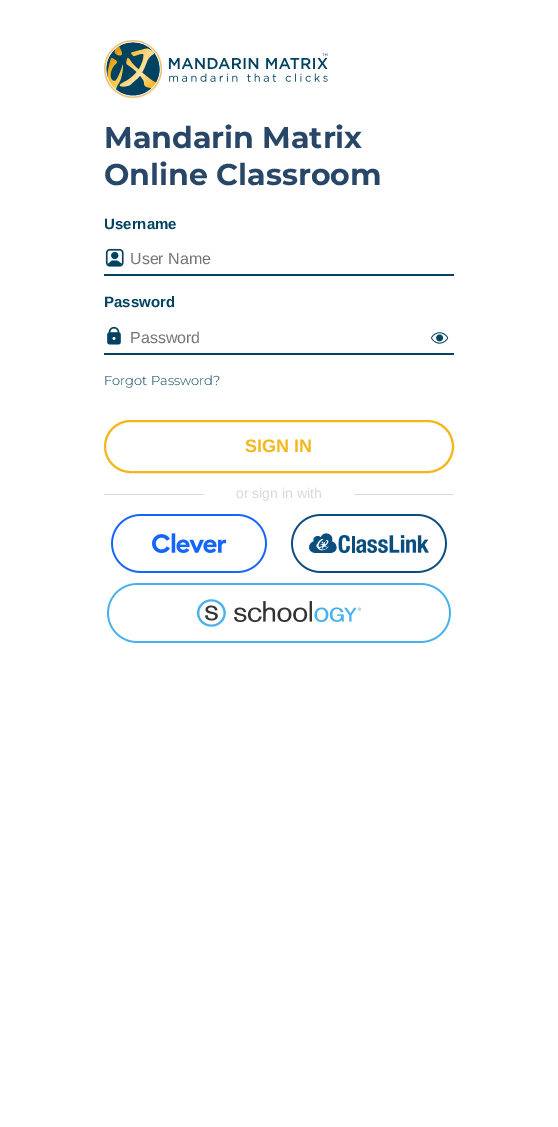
%!PS
<< /PageSize [558 1127] >> setpagedevice
/rgb { 3 { 255 div 3 1 roll } repeat setrgbcolor } def
/font { [ exch dup neg 0 0 3 -1 roll 0 0 ] selectfont } def
/text { moveto show } def
/roundrect { 5 dict begin { /r /h /w /y /x } { exch def } forall
  x r add y moveto x w add y 2 copy h add r arct x w add y h add x 1 index r arct
  x y h add x y r arct x y 2 copy exch w add exch r arct closepath end } def
/picture { 5 dict begin { /h /w /y /x /name } { exch def } forall
  gsave x y translate w h scale
  w h 8 [w 0 0 h 0 0] name (r) file false 3 colorimage grestore end } def
0 1127 translate 1 -1 scale
4 setmiterlimit
255 255 255 rgb
0 0 558 1127 rectfill
(img_01.rgb) 104 40 224 58 picture
(img_02.rgb) 105 248 19 19 picture
0 66 95 rgb
104 274 350 2 rectfill
(img_03.rgb) 107 326 14 19 picture
104 353 350 2 rectfill
(img_04.rgb) 431 332 18 12 picture
245 182 26 rgb
2 setlinewidth
105 421 348 51 25.5 roundrect stroke
217 217 217 rgb
104 494 100 1 rectfill
354 494 100 1 rectfill
(img_05.rgb) 111 514 156 59 picture
(img_06.rgb) 291 514 156 59 picture
(img_07.rgb) 107 583 344 60 picture
/Montserrat-Bold 30 font
40 71 104 rgb
(Mandarin Matrix) 104 148 text
(Online Classroom) 104 185 text
/LiberationSans-Bold 15 font
0 66 95 rgb
(Username) 104 229 text
/LiberationSans-Regular 16 font
117 117 117 rgb
(User Name) 130 264 text
/LiberationSans-Bold 15 font
0 66 95 rgb
(Password) 104 307 text
/LiberationSans-Regular 16 font
117 117 117 rgb
(Password) 130 343 text
/Montserrat-Light 13 font
0 66 95 rgb
(Forgot Password?) 104 385 text
/LiberationSans-Bold 18 font
245 182 26 rgb
(SIGN IN) 245 452 text
/LiberationSans-Regular 14 font
217 217 217 rgb
(or sign in with) 236 498 text
showpage
